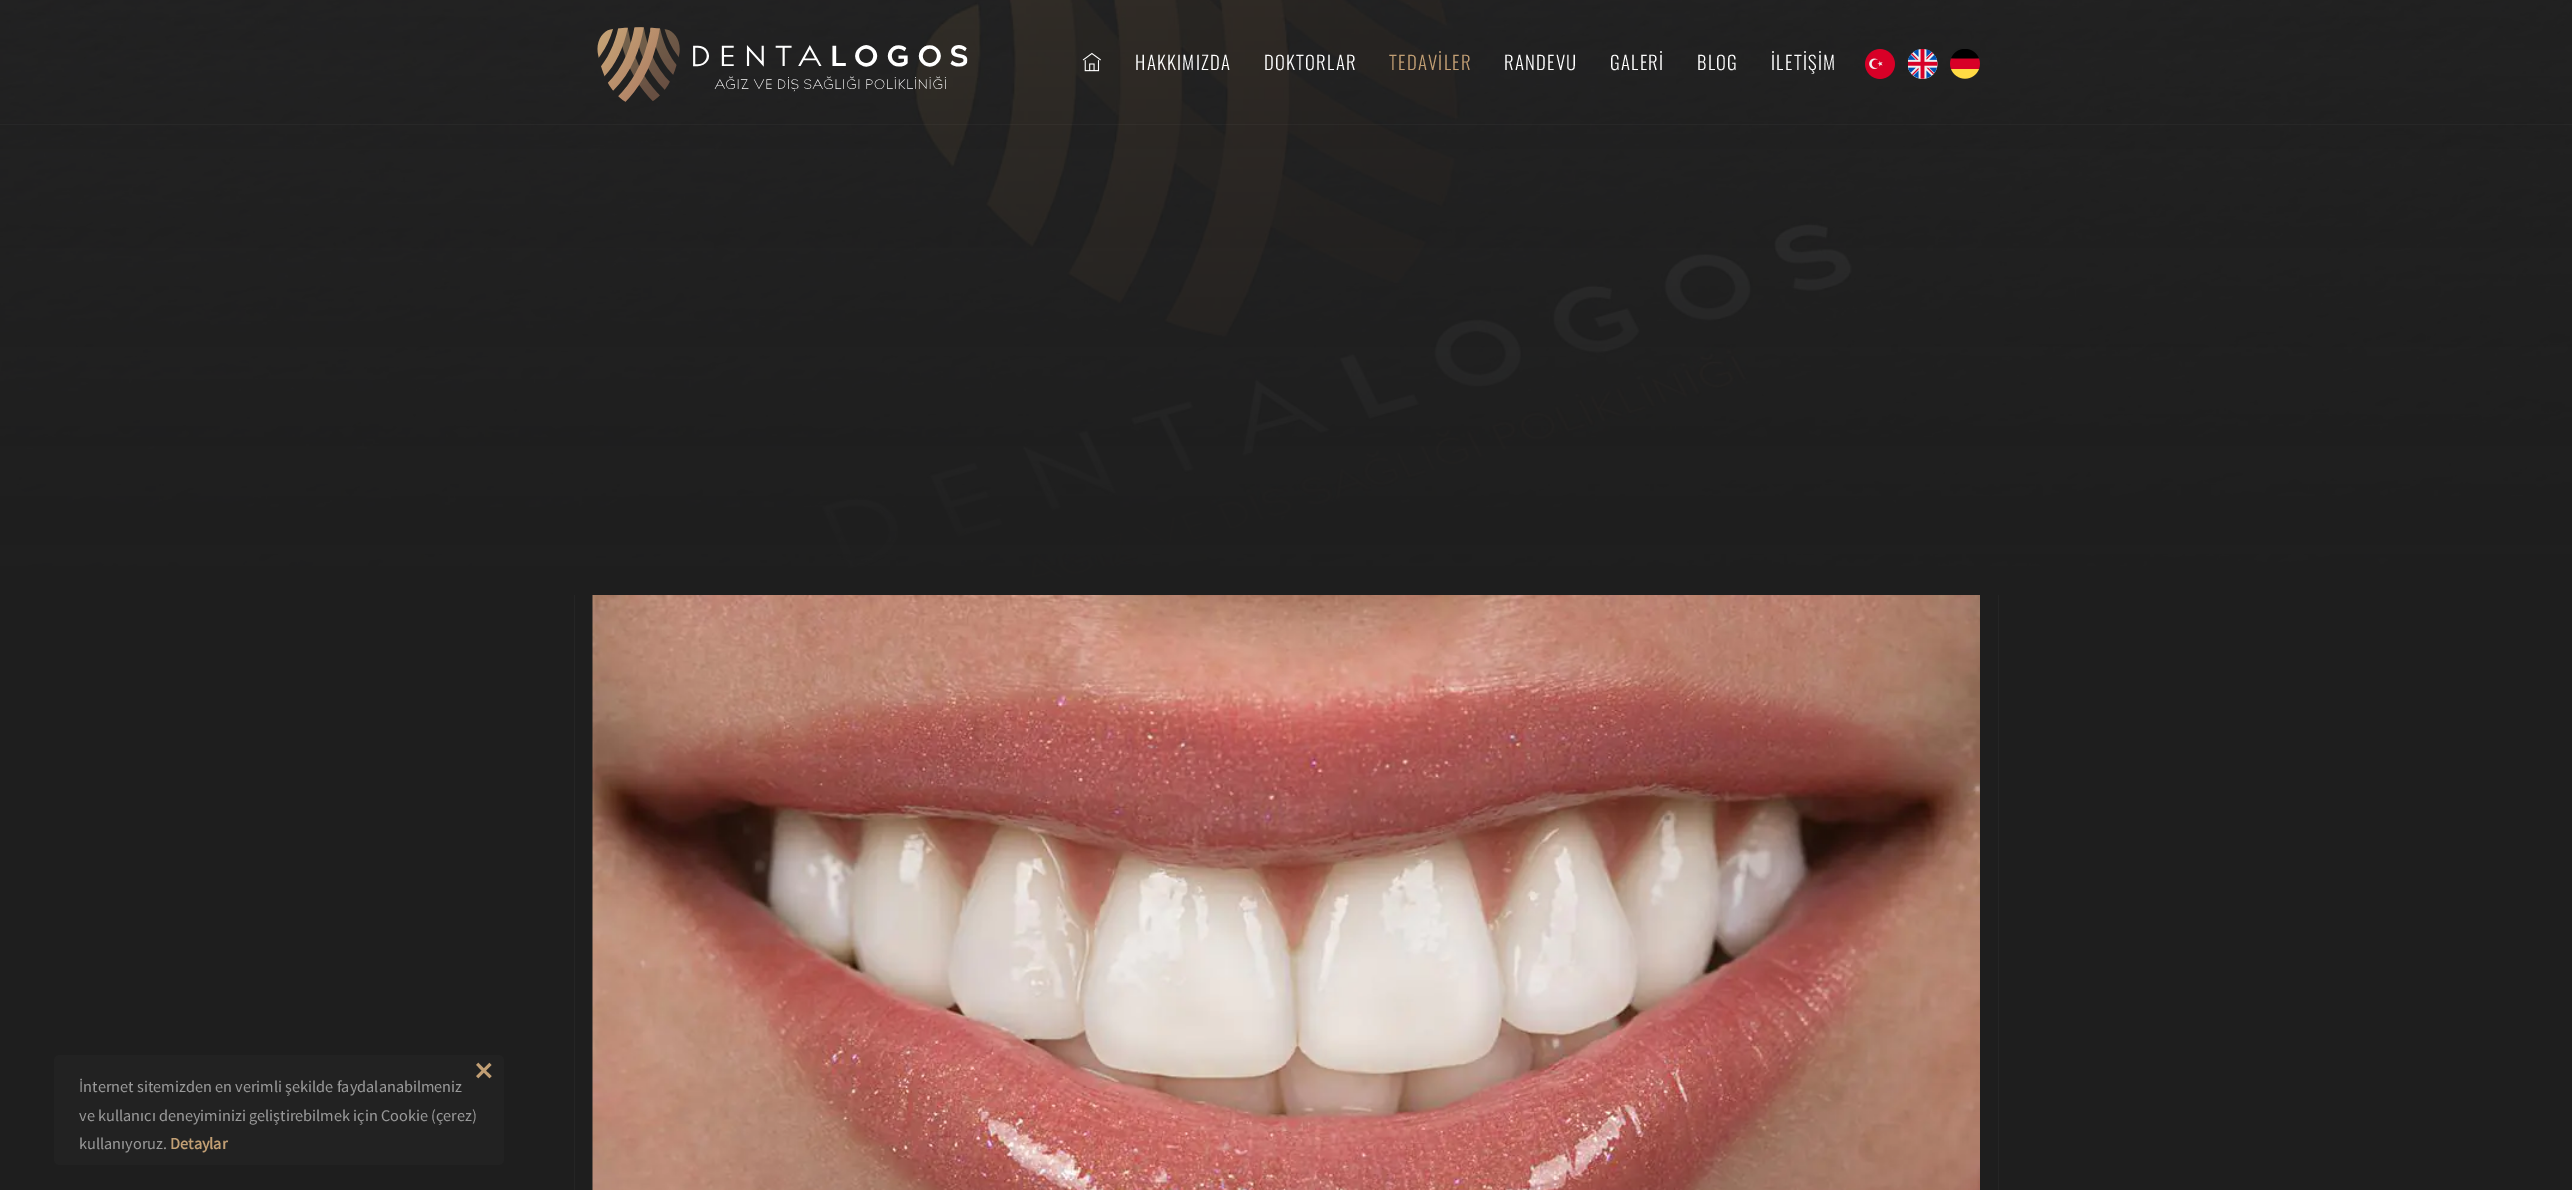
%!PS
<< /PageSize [2572 1190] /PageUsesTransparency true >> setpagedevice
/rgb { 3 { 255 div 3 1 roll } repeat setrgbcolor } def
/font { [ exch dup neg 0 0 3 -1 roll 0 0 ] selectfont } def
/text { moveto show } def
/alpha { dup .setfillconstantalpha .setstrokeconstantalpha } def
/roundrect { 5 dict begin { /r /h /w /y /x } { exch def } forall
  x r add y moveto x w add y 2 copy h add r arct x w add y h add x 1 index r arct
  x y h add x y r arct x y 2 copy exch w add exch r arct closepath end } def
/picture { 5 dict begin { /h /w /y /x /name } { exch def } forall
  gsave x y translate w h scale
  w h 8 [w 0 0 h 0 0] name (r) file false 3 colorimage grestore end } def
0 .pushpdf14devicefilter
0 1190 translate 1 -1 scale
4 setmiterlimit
30 30 30 rgb
0 0 2572 1190 rectfill
(img_01.rgb) 0 0 2572 595 picture
0.03 alpha
255 255 255 rgb
0 124 2572 1 rectfill
1 alpha
(img_02.rgb) 597 27 371 75 picture
(img_03.rgb) 1082 52 19 20 picture
(img_04.rgb) 1865 49 30 30 picture
(img_05.rgb) 1908 49 30 30 picture
(img_06.rgb) 1950 49 30 30 picture
34 34 34 rgb
54 1055 450 110 6 roundrect fill
37 37 37 rgb
1999 595 moveto 0 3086 rlineto -1 -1 rlineto 0 -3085 rlineto closepath fill
574 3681 moveto 0 -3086 rlineto 1 0 rlineto 0 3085 rlineto closepath fill
(img_07.rgb) 592 595 1388 595 picture
/Oswald-Light 18.75 font
255 255 255 rgb
1135 70 moveto 1.25 0 (HAKKIMIZDA) ashow
1264 70 moveto 1.25 0 (DOKTORLAR) ashow
194 159 116 rgb
1389 70 moveto 1.25 0 (TEDAVİLER) ashow
255 255 255 rgb
1504 70 moveto 1.25 0 (RANDEVU) ashow
1610 70 moveto 1.25 0 (GALERİ) ashow
1697 70 moveto 1.25 0 (BLOG) ashow
1771 70 moveto 1.25 0 (İLETİŞİM) ashow
/DejaVuSans-Bold 25 font
194 159 116 rgb
(✕) 473 1080 text
/SourceSansPro-Regular 16.25 font
153 153 153 rgb
(İnternet sitemizden en verimli şekilde faydalanabilmeniz) 79 1092 text
(ve kullanıcı deneyiminizi geliştirebilmek için Cookie \(çerez\)) 79 1121 text
(kullanıyoruz.) 79 1149 text
/SourceSansPro-Bold 16.25 font
194 159 116 rgb
(Detaylar) 170 1149 text
.poppdf14devicefilter showpage
